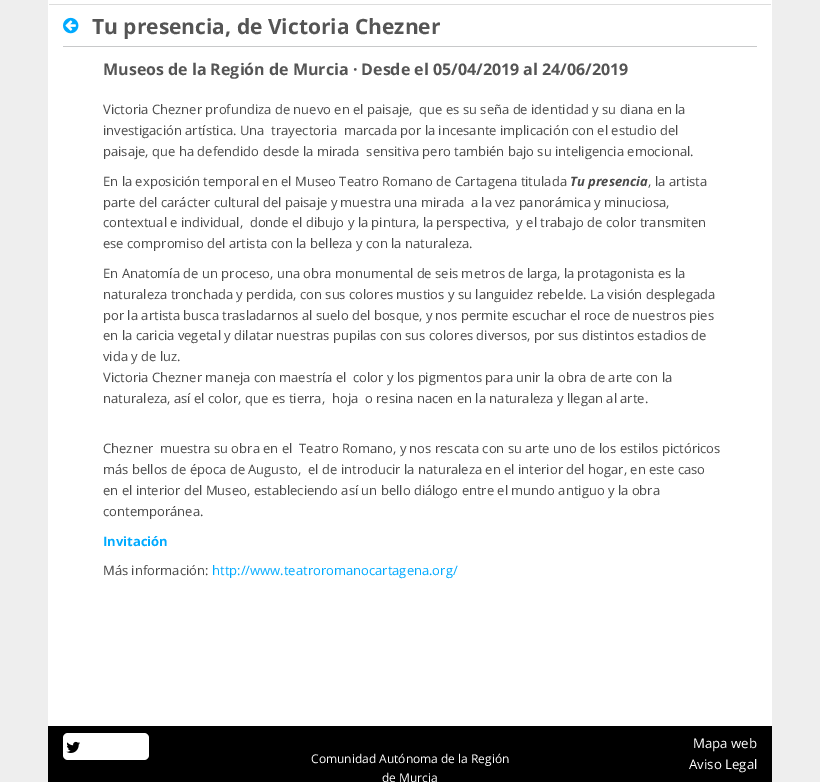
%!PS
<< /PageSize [820 782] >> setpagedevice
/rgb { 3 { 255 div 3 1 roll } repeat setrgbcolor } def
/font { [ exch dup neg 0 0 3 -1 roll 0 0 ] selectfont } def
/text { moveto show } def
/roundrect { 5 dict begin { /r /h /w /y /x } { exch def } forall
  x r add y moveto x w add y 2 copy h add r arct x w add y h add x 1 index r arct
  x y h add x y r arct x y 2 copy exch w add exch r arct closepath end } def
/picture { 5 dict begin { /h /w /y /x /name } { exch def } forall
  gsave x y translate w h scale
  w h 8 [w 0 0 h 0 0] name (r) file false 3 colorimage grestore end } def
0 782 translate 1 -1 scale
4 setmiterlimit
238 238 238 rgb
0 0 820 782 rectfill
255 255 255 rgb
48 0 724 726 rectfill
221 221 221 rgb
49 4 722 1 rectfill
200 201 202 rgb
63 46 694 1 rectfill
(img_01.rgb) 63 17 16 17 picture
0 0 0 rgb
48 726 724 56 rectfill
255 255 255 rgb
63 733 86 27 5 roundrect fill
(img_02.rgb) 66 741 14 12 picture
/OpenSans-Bold 21 font
85 85 85 rgb
(Tu presencia, de Victoria Chezner) 92 34 text
/OpenSans-Bold 16 font
(Museos de la Región de Murcia · Desde el 05/04/2019 al 24/06/2019) 103 75 text
/OpenSans-Regular 13 font
73 73 73 rgb
(Victoria Chezner profundiza de nuevo en el paisaje,  que es su seña de identidad y su diana en la) 103 114 text
(investigación artística. Una  trayectoria  marcada por la incesante implicación con el estudio del) 103 135 text
(paisaje, que ha defendido desde la mirada  sensitiva pero también bajo su inteligencia emocional.) 103 156 text
(En la exposición temporal en el Museo Teatro Romano de Cartagena titulada) 103 186 text
/OpenSans-BoldItalic 13 font
(Tu presencia) 570 186 text
/OpenSans-Regular 13 font
(, la artista) 648 186 text
(parte del carácter cultural del paisaje y muestra una mirada  a la vez panorámica y minuciosa,) 103 207 text
(contextual e individual,  donde el dibujo y la pintura, la perspectiva,  y el trabajo de color transmiten) 103 227 text
(ese compromiso del artista con la belleza y con la naturaleza.) 103 248 text
(En Anatomía de un proceso, una obra monumental de seis metros de larga, la protagonista es la) 103 278 text
(naturaleza tronchada y perdida, con sus colores mustios y su languidez rebelde. La visión desplegada) 103 299 text
(por la artista busca trasladarnos al suelo del bosque, y nos permite escuchar el roce de nuestros pies) 103 320 text
(en la caricia vegetal y dilatar nuestras pupilas con sus colores diversos, por sus distintos estadios de) 103 340 text
(vida y de luz.) 103 361 text
(Victoria Chezner maneja con maestría el  color y los pigmentos para unir la obra de arte con la) 103 382 text
(naturaleza, así el color, que es tierra,  hoja  o resina nacen en la naturaleza y llegan al arte.) 103 403 text
(Chezner  muestra su obra en el  Teatro Romano, y nos rescata con su arte uno de los estilos pictóricos) 103 453 text
(más bellos de época de Augusto,  el de introducir la naturaleza en el interior del hogar, en este caso) 103 474 text
(en el interior del Museo, estableciendo así un bello diálogo entre el mundo antiguo y la obra) 103 495 text
(contemporánea.) 103 516 text
/OpenSans-Bold 13 font
0 170 255 rgb
(Invitación) 103 546 text
/OpenSans-Regular 13 font
73 73 73 rgb
(Más información:) 103 575 text
0 170 255 rgb
(http://www.teatroromanocartagena.org/) 212 575 text
/OpenSans-Regular 12 font
255 255 255 rgb
(Comunidad Autónoma de la Región) 311 763 text
(de Murcia) 382 782 text
/OpenSans-Regular 13.25 font
(Mapa web) 693 748 text
(Aviso Legal) 689 769 text
showpage
